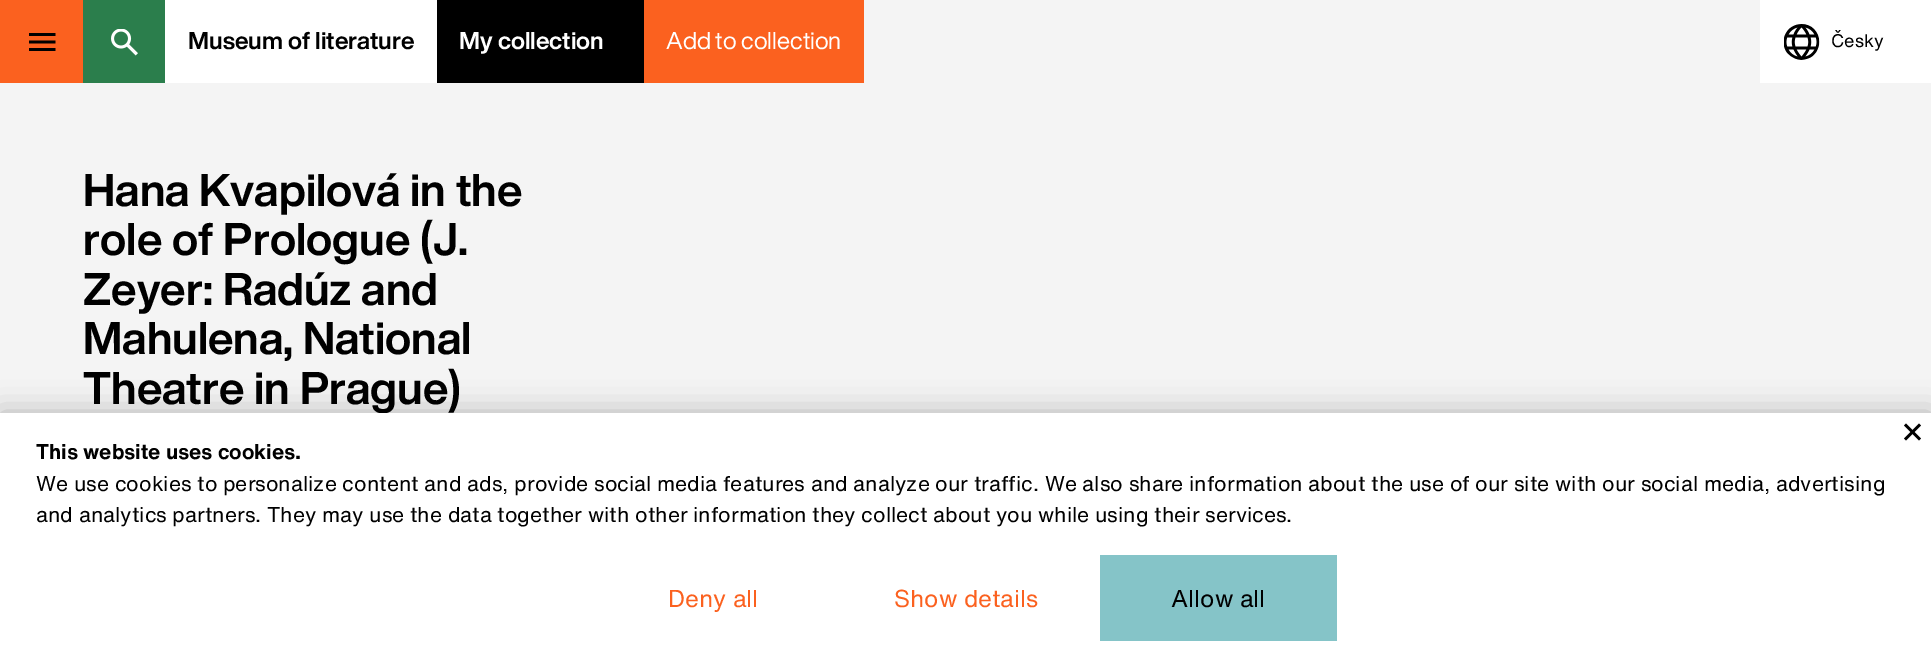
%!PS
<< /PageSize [1931 664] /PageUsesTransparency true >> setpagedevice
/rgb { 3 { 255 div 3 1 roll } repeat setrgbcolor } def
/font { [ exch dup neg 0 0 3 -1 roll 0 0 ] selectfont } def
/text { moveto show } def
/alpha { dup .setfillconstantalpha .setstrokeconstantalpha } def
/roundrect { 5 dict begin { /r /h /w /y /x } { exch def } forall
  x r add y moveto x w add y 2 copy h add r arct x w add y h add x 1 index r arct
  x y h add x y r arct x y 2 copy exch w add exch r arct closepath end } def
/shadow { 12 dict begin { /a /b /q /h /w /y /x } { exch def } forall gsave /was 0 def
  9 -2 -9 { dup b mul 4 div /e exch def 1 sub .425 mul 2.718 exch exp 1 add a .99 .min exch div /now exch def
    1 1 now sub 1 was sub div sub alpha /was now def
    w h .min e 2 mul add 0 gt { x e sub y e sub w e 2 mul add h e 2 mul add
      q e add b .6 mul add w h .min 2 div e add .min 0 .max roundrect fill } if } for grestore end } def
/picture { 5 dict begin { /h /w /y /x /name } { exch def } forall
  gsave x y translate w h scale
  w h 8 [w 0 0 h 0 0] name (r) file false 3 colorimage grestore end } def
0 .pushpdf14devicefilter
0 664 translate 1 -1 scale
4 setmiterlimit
244 244 244 rgb
0 0 1931 664 rectfill
251 97 31 rgb
0 0 83 83 rectfill
(img_01.rgb) 29 33 27 18 picture
43 126 76 rgb
83 0 82 83 rectfill
(img_02.rgb) 111 29 27 27 picture
255 255 255 rgb
165 0 272 83 rectfill
0 0 0 rgb
437 0 207 83 rectfill
251 97 31 rgb
644 0 220 83 rectfill
255 255 255 rgb
1760 0 171 83 rectfill
(img_03.rgb) 1784 24 36 36 picture
0 0 0 rgb
0 413 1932 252 0 15 0.27 shadow
/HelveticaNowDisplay-Bold 24 font
(Museum of literature) 188 49 text
255 255 255 rgb
(My collection) 459 49 text
/HelveticaNowDisplay-Regular 24 font
(Add to collection) 666 49 text
/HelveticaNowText-Regular 18 font
0 0 0 rgb
(Česky) 1831 47 text
/HelveticaNowDisplay-Bold 45 font
(Hana Kvapilová in the) 83 206 text
(role of Prologue \(J.) 83 255 text
(Zeyer: Radúz and) 83 305 text
(Mahulena, National) 83 354 text
(Theatre in Prague\)) 83 404 text
255 255 255 rgb
0 413 1931 251 rectfill
0 0 0 rgb
1904 438.5 moveto 15 -15 rlineto 2 2 rlineto -15 15 rlineto closepath fill
1906 423.5 moveto 15 15 rlineto -2 2 rlineto -15 -15 rlineto closepath fill
/HelveticaNowText-Bold 21 font
(This website uses cookies.) 36 459 text
/HelveticaNowText-Regular 21 font
(We use cookies to personalize content and ads, provide social media features and analyze our traffic. We also share information about the use of our site with our social media, advertising) 36 491 text
(and analytics partners. They may use the data together with other information they collect about you while using their services.) 36 522 text
/HelveticaNowText-Regular 24 font
251 97 31 rgb
(Deny all) 668 607 text
(Show details) 894 607 text
133 196 200 rgb
1100 555 237 86 rectfill
0 0 0 rgb
(Allow all) 1171 607 text
.poppdf14devicefilter showpage
